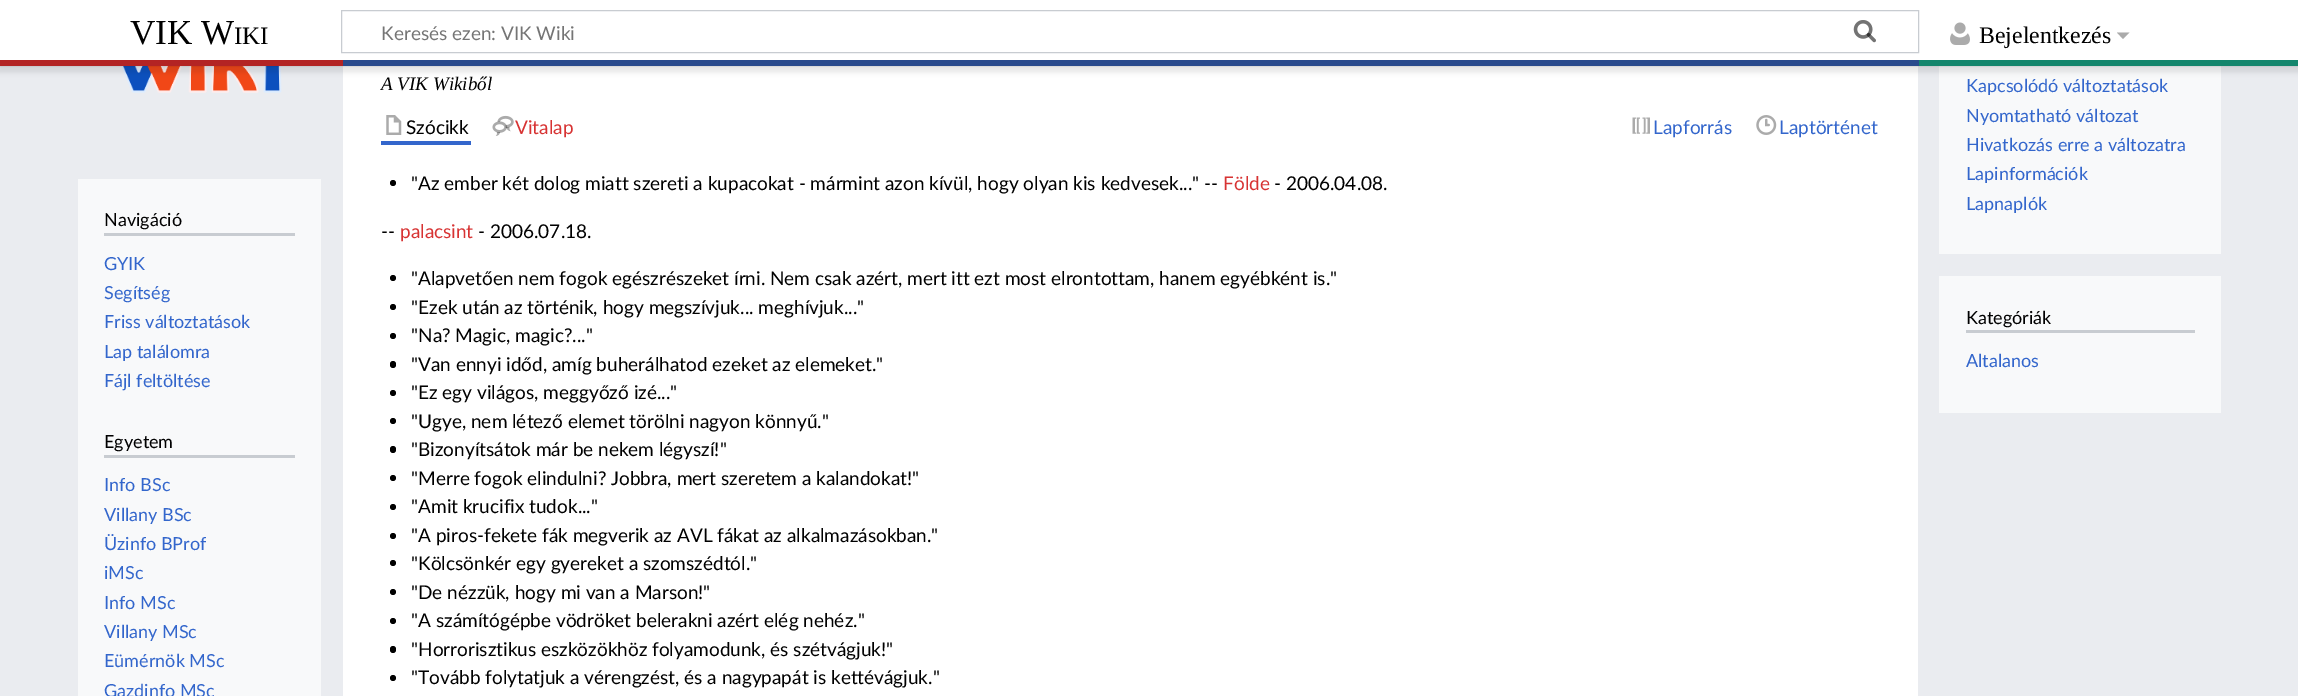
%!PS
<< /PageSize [2298 696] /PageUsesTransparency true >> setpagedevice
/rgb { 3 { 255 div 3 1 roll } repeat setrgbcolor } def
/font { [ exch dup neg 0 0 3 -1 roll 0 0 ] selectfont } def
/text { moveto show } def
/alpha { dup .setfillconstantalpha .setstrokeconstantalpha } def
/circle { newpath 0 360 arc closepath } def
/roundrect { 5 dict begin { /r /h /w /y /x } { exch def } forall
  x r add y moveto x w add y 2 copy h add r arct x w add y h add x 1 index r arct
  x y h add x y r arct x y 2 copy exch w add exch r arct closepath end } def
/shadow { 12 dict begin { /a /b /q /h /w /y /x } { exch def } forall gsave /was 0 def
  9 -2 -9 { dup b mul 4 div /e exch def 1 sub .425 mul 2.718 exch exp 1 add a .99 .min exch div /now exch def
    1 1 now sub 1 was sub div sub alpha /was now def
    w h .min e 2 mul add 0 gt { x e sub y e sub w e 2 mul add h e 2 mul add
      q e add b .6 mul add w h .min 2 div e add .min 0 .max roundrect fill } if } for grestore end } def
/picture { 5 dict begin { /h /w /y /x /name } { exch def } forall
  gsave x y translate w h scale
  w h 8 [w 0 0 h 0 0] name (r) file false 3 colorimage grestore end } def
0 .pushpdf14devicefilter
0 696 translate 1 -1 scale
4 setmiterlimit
234 236 240 rgb
0 0 2298 696 rectfill
(img_04.rgb) 120 66 162 27 picture
255 255 255 rgb
343 66 1575 630 rectfill
248 249 250 rgb
1939 66 282 188 rectfill
0 0 0 rgb
0 60 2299 6 0 1 0.2 shadow
-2 61 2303 12 0 2 0.07 shadow
255 255 255 rgb
0 0 2298 60 rectfill
200 204 209 rgb
341.5 10.5 1577 42 rectstroke
(img_01.rgb) 1853 20 23 23 picture
(img_02.rgb) 1853 20 23 23 picture
(img_03.rgb) 1950 22 20 23 picture
171 171 171 rgb
2129.5 32.5 moveto -6.5 6.5 rlineto -6 -6.5 rlineto closepath fill
179 36 36 rgb
0 60 343 6 rectfill
42 75 141 rgb
343 60 1576 6 rectfill
20 134 109 rgb
1919 60 379 6 rectfill
248 249 250 rgb
78 179 243 517 rectfill
200 204 209 rgb
104 233 191 3 rectfill
104 455 191 3 rectfill
51 102 204 rgb
381 141 90 4 rectfill
(img_05.rgb) 386 115 16 20 picture
(img_06.rgb) 492 115 22 21 picture
(img_07.rgb) 1632 117 18 17 picture
(img_08.rgb) 1756 115 21 20 picture
0 0 0 rgb
393 183 3 circle fill
393 278 3 circle fill
393 307 3 circle fill
393 336 3 circle fill
390 361 6 7 3 roundrect fill
393 393 3 circle fill
393 421 3 circle fill
390 446 6 7 3 roundrect fill
393 478 3 circle fill
393 507 3 circle fill
393 536 3 circle fill
393 563 3 circle fill
393 592 3 circle fill
393 621 3 circle fill
390 646 6 7 3 roundrect fill
393 678 3 circle fill
248 249 250 rgb
1939 276 282 137 rectfill
200 204 209 rgb
1966 330 229 3 rectfill
/LiberationSerif-Regular 35 font
0 0 0 rgb
(VIK W) 130 44 text
/LiberationSerif-Regular 25 font
(IKI) 234 44 text
/Lato-Regular 19 font
117 117 117 rgb
(Keresés ezen: VIK Wiki) 381 40 text
/LiberationSerif-Regular 23.75 font
0 0 0 rgb
(Bejelentkezés) 1979 43 text
/Lato-Regular 18 font
(Navigáció) 104 226 text
51 102 204 rgb
(GYIK) 104 270 text
(Segítség) 104 299 text
(Friss változtatások) 104 328 text
(Lap találomra) 104 358 text
(Fájl feltöltése) 104 387 text
0 0 0 rgb
(Egyetem) 104 448 text
51 102 204 rgb
(Info BSc) 104 491 text
(Villany BSc) 104 521 text
(Üzinfo BProf) 104 550 text
(iMSc) 104 579 text
(Info MSc) 104 609 text
(Villany MSc) 104 638 text
(Eümérnök MSc) 104 667 text
(Gazdinfo MSc) 104 697 text
/LiberationSerif-Italic 19 font
0 0 0 rgb
(A VIK Wikiből) 381 90 text
/Lato-Regular 19 font
(Szócikk) 406 134 text
215 51 51 rgb
(Vitalap) 515 134 text
51 102 204 rgb
(Lapforrás) 1653 134 text
(Laptörténet) 1779 134 text
0 0 0 rgb
("Az ember két dolog miatt szereti a kupacokat - mármint azon kívül, hogy olyan kis kedvesek..." --) 411 190 text
215 51 51 rgb
(Földe) 1223 190 text
0 0 0 rgb
(- 2006.04.08.) 1274 190 text
(--) 381 238 text
215 51 51 rgb
(palacsint) 400 238 text
0 0 0 rgb
(- 2006.07.18.) 478 238 text
("Alapvetően nem fogok egészrészeket írni. Nem csak azért, mert itt ezt most elrontottam, hanem egyébként is.") 411 285 text
("Ezek után az történik, hogy megszívjuk... meghívjuk...") 411 314 text
("Na? Magic, magic?...") 411 342 text
("Van ennyi időd, amíg buherálhatod ezeket az elemeket.") 411 371 text
("Ez egy világos, meggyőző izé...") 411 399 text
("Ugye, nem létező elemet törölni nagyon könnyű.") 411 428 text
("Bizonyítsátok már be nekem légyszí!") 411 456 text
("Merre fogok elindulni? Jobbra, mert szeretem a kalandokat!") 411 485 text
("Amit krucifix tudok...") 411 513 text
("A piros-fekete fák megverik az AVL fákat az alkalmazásokban.") 411 542 text
("Kölcsönkér egy gyereket a szomszédtól.") 411 570 text
("De nézzük, hogy mi van a Marson!") 411 599 text
("A számítógépbe vödröket belerakni azért elég nehéz.") 411 627 text
("Horrorisztikus eszközökhöz folyamodunk, és szétvágjuk!") 411 656 text
("Tovább folytatjuk a vérengzést, és a nagypapát is kettévágjuk.") 411 684 text
/Lato-Regular 18 font
51 102 204 rgb
(Kapcsolódó változtatások) 1966 92 text
(Nyomtatható változat) 1966 122 text
(Hivatkozás erre a változatra) 1966 151 text
(Lapinformációk) 1966 180 text
(Lapnaplók) 1966 210 text
0 0 0 rgb
(Kategóriák) 1966 324 text
51 102 204 rgb
(Altalanos) 1966 367 text
.poppdf14devicefilter showpage
